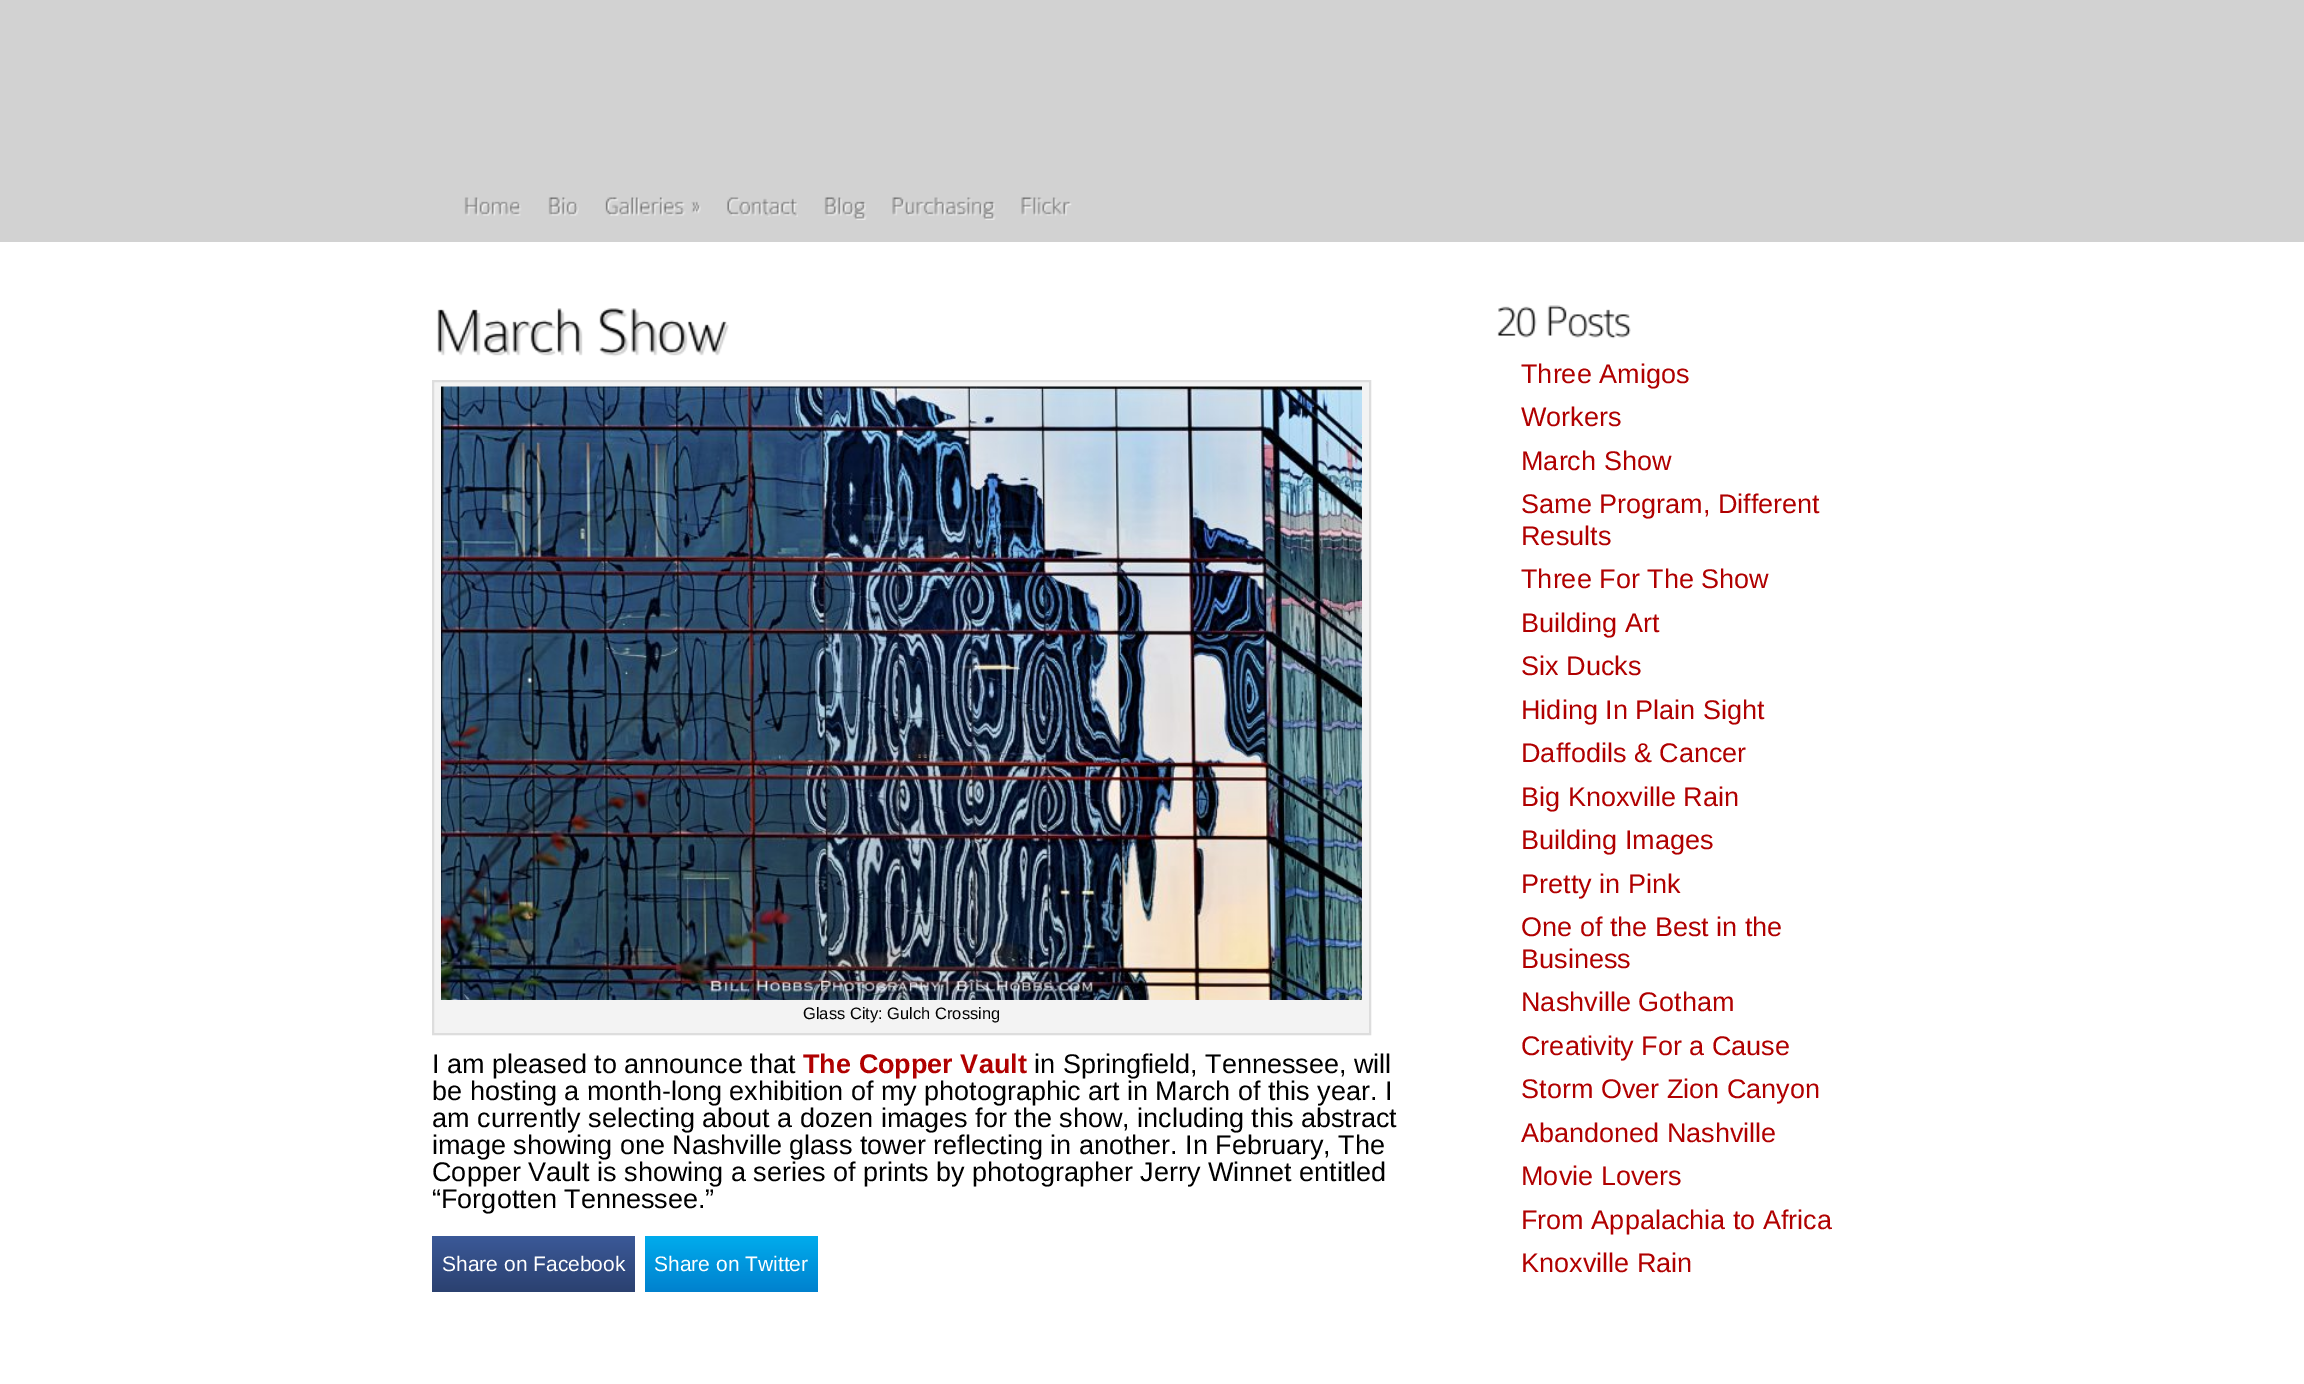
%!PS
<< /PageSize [2304 1384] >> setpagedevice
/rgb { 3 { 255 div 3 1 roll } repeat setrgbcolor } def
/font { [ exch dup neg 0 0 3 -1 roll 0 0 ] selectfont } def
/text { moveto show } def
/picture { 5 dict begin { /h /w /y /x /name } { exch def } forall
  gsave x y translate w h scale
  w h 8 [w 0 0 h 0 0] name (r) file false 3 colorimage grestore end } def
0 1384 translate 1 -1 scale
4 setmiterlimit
255 255 255 rgb
0 0 2304 1384 rectfill
210 210 210 rgb
0 0 2304 242 rectfill
(img_01.rgb) 464 197 58 19 picture
(img_02.rgb) 548 197 31 19 picture
(img_03.rgb) 605 197 81 19 picture
(img_04.rgb) 691 201 10 13 picture
(img_05.rgb) 727 197 71 20 picture
(img_06.rgb) 824 197 43 23 picture
(img_07.rgb) 892 197 104 23 picture
(img_08.rgb) 1021 197 51 19 picture
(img_09.rgb) 437 308 146 48 picture
(img_10.rgb) 599 308 130 49 picture
243 243 243 rgb
433 381 moveto 937 0 rlineto 0 653 rlineto -937 0 rlineto closepath gsave fill grestore
221 221 221 rgb
2 setlinewidth
stroke
(img_11.rgb) 441 386 921 614 picture
gsave 432 1236 moveto 203 0 rlineto 0 56 rlineto -203 0 rlineto closepath clip newpath
<< /ShadingType 2 /ColorSpace /DeviceRGB /Coords [533 1236 533 1292] /Extend [true true] /Function << /FunctionType 2 /Domain [0 1] /C0 [0.231 0.349 0.596] /C1 [0.169 0.255 0.439] /N 1 >> >> shfill grestore
gsave 645 1236 moveto 173 0 rlineto 0 56 rlineto -173 0 rlineto closepath clip newpath
<< /ShadingType 2 /ColorSpace /DeviceRGB /Coords [731 1236 731 1292] /Extend [true true] /Function << /FunctionType 2 /Domain [0 1] /C0 [0 0.675 0.929] /C1 [0 0.506 0.808] /N 1 >> >> shfill grestore
(img_12.rgb) 1497 306 40 32 picture
(img_13.rgb) 1547 305 84 34 picture
/LiberationSans-Regular 16.5 font
0 0 0 rgb
(Glass City: Gulch Crossing) 803 1019 text
/LiberationSans-Regular 27 font
(I am pleased to announce that) 432 1073 text
/LiberationSans-Bold 27 font
176 0 0 rgb
(The Copper Vault) 803 1073 text
/LiberationSans-Regular 27 font
0 0 0 rgb
(in Springfield, Tennessee, will) 1034 1073 text
(be hosting a month-long exhibition of my photographic art in March of this year. I) 432 1100 text
(am currently selecting about a dozen images for the show, including this abstract) 432 1127 text
(image showing one Nashville glass tower reflecting in another. In February, The) 432 1154 text
(Copper Vault is showing a series of prints by photographer Jerry Winnet entitled) 432 1181 text
(“Forgotten Tennessee.”) 432 1208 text
/LiberationSans-Regular 21 font
255 255 255 rgb
(Share on Facebook) 442 1271 text
(Share on Twitter) 654 1271 text
/LiberationSans-Regular 27 font
176 0 0 rgb
(Three Amigos) 1521 383 text
(Workers) 1521 426 text
(March Show) 1521 470 text
(Same Program, Different) 1521 513 text
(Results) 1521 545 text
(Three For The Show) 1521 588 text
(Building Art) 1521 632 text
(Six Ducks) 1521 675 text
(Hiding In Plain Sight) 1521 719 text
(Daffodils & Cancer) 1521 762 text
(Big Knoxville Rain) 1521 806 text
(Building Images) 1521 849 text
(Pretty in Pink) 1521 893 text
(One of the Best in the) 1521 936 text
(Business) 1521 968 text
(Nashville Gotham) 1521 1011 text
(Creativity For a Cause) 1521 1055 text
(Storm Over Zion Canyon) 1521 1098 text
(Abandoned Nashville) 1521 1142 text
(Movie Lovers) 1521 1185 text
(From Appalachia to Africa) 1521 1229 text
(Knoxville Rain) 1521 1272 text
showpage
